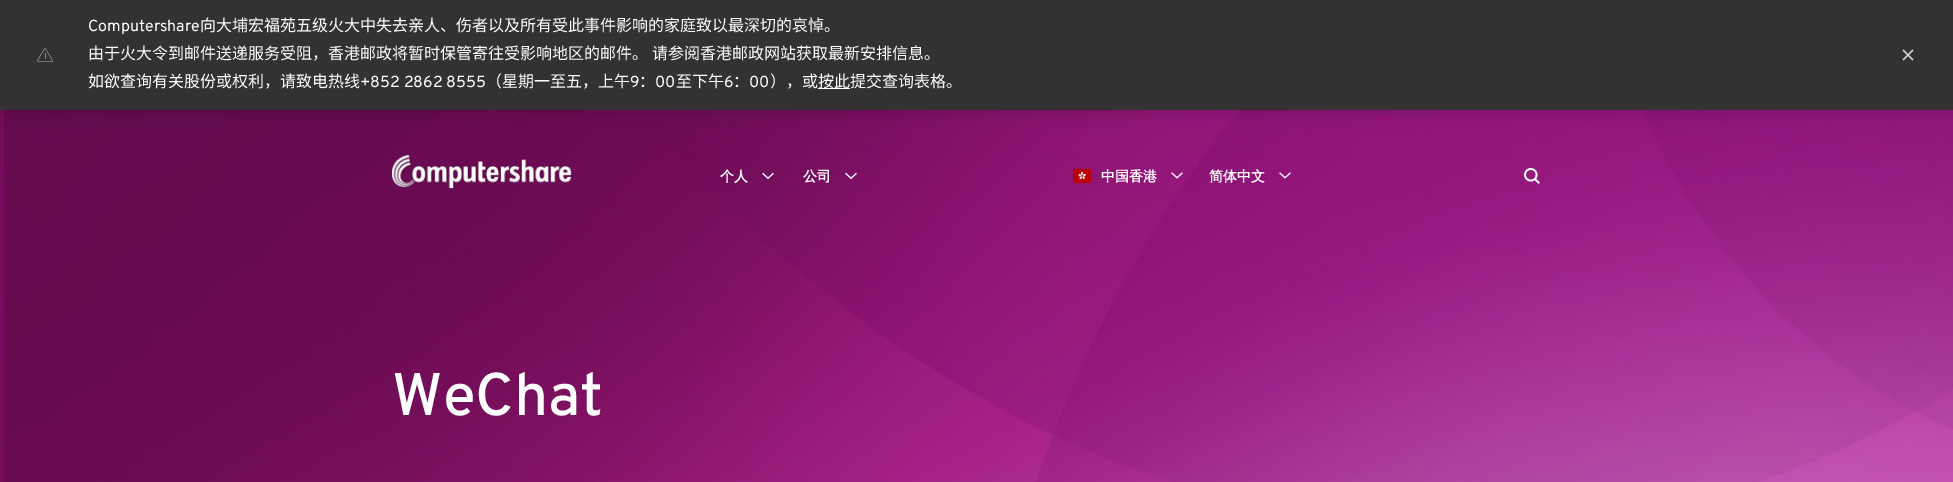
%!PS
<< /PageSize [1953 482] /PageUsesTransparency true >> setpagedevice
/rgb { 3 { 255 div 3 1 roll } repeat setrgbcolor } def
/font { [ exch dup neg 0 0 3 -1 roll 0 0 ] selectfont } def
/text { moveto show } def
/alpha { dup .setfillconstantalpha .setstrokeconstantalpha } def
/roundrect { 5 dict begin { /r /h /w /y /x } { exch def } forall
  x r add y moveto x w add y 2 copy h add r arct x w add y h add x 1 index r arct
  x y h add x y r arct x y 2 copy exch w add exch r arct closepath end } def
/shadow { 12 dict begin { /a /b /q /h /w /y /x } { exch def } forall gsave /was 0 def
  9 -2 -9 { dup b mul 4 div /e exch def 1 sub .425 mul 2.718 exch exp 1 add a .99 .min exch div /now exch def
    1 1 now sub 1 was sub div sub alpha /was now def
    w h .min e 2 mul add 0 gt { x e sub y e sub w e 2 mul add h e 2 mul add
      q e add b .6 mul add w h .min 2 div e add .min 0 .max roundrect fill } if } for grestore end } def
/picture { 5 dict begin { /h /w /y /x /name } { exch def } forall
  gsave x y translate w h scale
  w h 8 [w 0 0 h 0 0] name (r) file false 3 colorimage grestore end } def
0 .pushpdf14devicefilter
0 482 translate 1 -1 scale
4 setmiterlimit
255 255 255 rgb
0 0 1953 482 rectfill
(img_10.rgb) 0 110 1953 372 picture
0 0 0 rgb
-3 -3 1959 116 0 7.5 0.16 shadow
51 49 50 rgb
0 0 1953 110 rectfill
(img_01.rgb) 37 48 16 14 picture
255 255 255 rgb
818 88 32 1 rectfill
(img_02.rgb) 1902 49 12 12 picture
(img_03.rgb) 392 155 180 34 picture
(img_04.rgb) 762 172 12 8 picture
(img_05.rgb) 845 172 12 8 picture
(img_06.rgb) 1073 169 18 14 picture
(img_07.rgb) 1171 172 12 7 picture
(img_08.rgb) 1279 172 12 7 picture
(img_09.rgb) 1524 168 16 16 picture
/Overpass-Regular 16 font
(Computershare) 88 31 text
/NotoSansCJKSC-Regular 16 font
(向大埔宏福苑五级火大中失去亲人、伤者以及所有受此事件影响的家庭致以最深切的哀悼。) 200 31 text
(由于火大令到邮件送递服务受阻，香港邮政将暂时保管寄往受影响地区的邮件。 请参阅香港邮政网站获取最新安排信息。) 88 59 text
(如欲查询有关股份或权利，请致电热线) 88 87 text
/Overpass-Regular 16 font
(+852 2862 8555) 360 87 text
/NotoSansCJKSC-Regular 16 font
(（星期一至五，上午) 486 87 text
/Overpass-Regular 16 font
(9) 630 87 text
/NotoSansCJKSC-Regular 16 font
(：) 639 87 text
/Overpass-Regular 16 font
(00) 655 87 text
/NotoSansCJKSC-Regular 16 font
(至下午) 676 87 text
/Overpass-Regular 16 font
(6) 724 87 text
/NotoSansCJKSC-Regular 16 font
(：) 733 87 text
/Overpass-Regular 16 font
(00) 749 87 text
/NotoSansCJKSC-Regular 16 font
(），或) 770 87 text
(按此提交查询表格。) 818 87 text
/WenQuanYiZenHei-Bold 14 font
(个人) 720 181 text
(公司) 803 181 text
(中国香港) 1101 181 text
(简体中文) 1209 181 text
/Overpass-Medium 60 font
(WeChat) 392 415 text
.poppdf14devicefilter showpage
